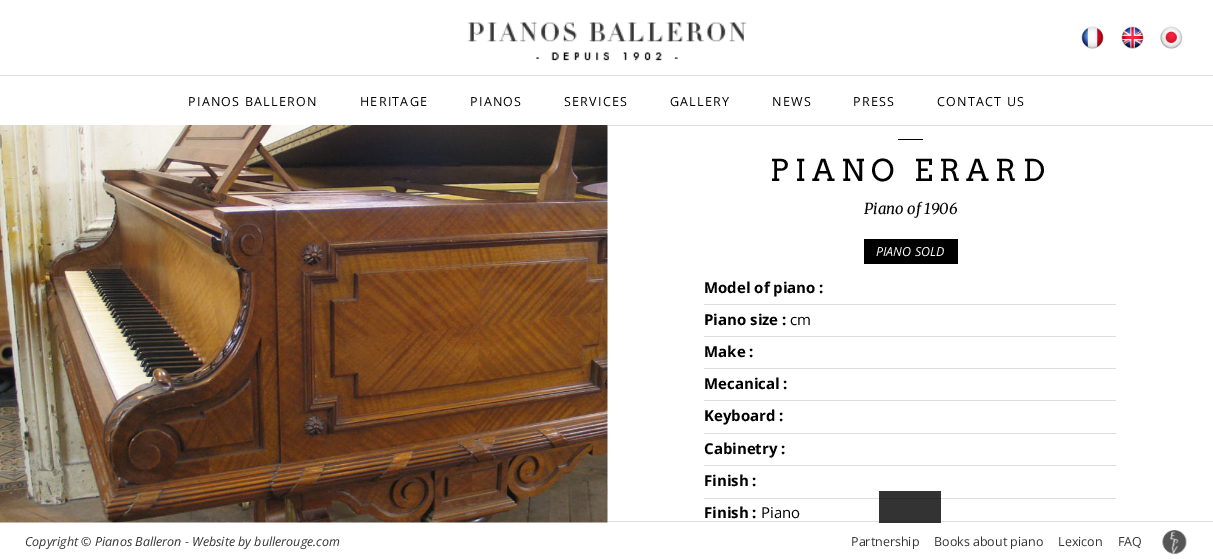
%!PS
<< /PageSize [1213 559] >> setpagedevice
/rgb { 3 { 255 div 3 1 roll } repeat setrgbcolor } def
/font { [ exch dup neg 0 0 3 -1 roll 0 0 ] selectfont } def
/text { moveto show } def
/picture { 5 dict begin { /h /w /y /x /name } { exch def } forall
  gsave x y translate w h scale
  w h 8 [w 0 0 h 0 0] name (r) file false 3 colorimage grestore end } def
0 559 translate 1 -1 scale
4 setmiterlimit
255 255 255 rgb
0 0 1213 559 rectfill
51 51 51 rgb
879 491 62 32 rectfill
(img_01.rgb) 1081 26 23 23 picture
(img_02.rgb) 1121 26 23 23 picture
(img_03.rgb) 1160 26 23 23 picture
(img_04.rgb) 467 22 280 39 picture
221 221 221 rgb
0 75 1213 1 rectfill
(img_05.rgb) 0 125 608 398 picture
608 125 605 1 rectfill
608 521 605 1 rectfill
44 44 44 rgb
879 521 62 1 rectfill
0 0 0 rgb
898 139 25 1 rectfill
864 239 94 25 rectfill
221 221 221 rgb
704 304 412 1 rectfill
704 336 412 1 rectfill
704 368 412 1 rectfill
704 400 412 1 rectfill
704 433 412 1 rectfill
704 465 412 1 rectfill
704 498 412 1 rectfill
44 44 44 rgb
879 498 62 1 rectfill
(img_06.rgb) 1162 530 25 25 picture
/OpenSans-Regular 12.5 font
0 0 0 rgb
188 106 moveto 1.25 0 (PIANOS BALLERON) ashow
360 106 moveto 1.25 0 (HERITAGE) ashow
470 106 moveto 1.25 0 (PIANOS) ashow
564 106 moveto 1.25 0 (SERVICES) ashow
670 106 moveto 1.25 0 (GALLERY) ashow
772 106 moveto 1.25 0 (NEWS) ashow
853 106 moveto 1.25 0 (PRESS) ashow
937 106 moveto 1.25 0 (CONTACT US) ashow
/Arvo-Regular 30 font
770 181 moveto 6.25 0 (PIANO ERARD) ashow
/Merriweather-Italic 15 font
(Piano of 1906) 864 214 text
/OpenSans-Italic 12.5 font
255 255 255 rgb
(PIANO SOLD) 876 256 text
/OpenSans-Bold 15 font
0 0 0 rgb
(Model of piano :) 704 293 text
(Piano size :) 704 325 text
/OpenSans-Regular 15 font
(cm) 790 325 text
/OpenSans-Bold 15 font
(Make :) 704 357 text
(Mecanical :) 704 389 text
(Keyboard :) 704 421 text
(Cabinetry :) 704 454 text
(Finish :) 704 486 text
(Finish :) 704 518 text
/OpenSans-Regular 15 font
(Piano) 761 518 text
/OpenSans-Italic 12.5 font
51 51 51 rgb
(Copyright © Pianos Balleron - Website by bullerouge.com) 25 546 text
/OpenSans-Regular 12.5 font
(Partnership) 851 546 text
(Books about piano) 934 546 text
(Lexicon) 1058 546 text
(FAQ) 1118 546 text
showpage
